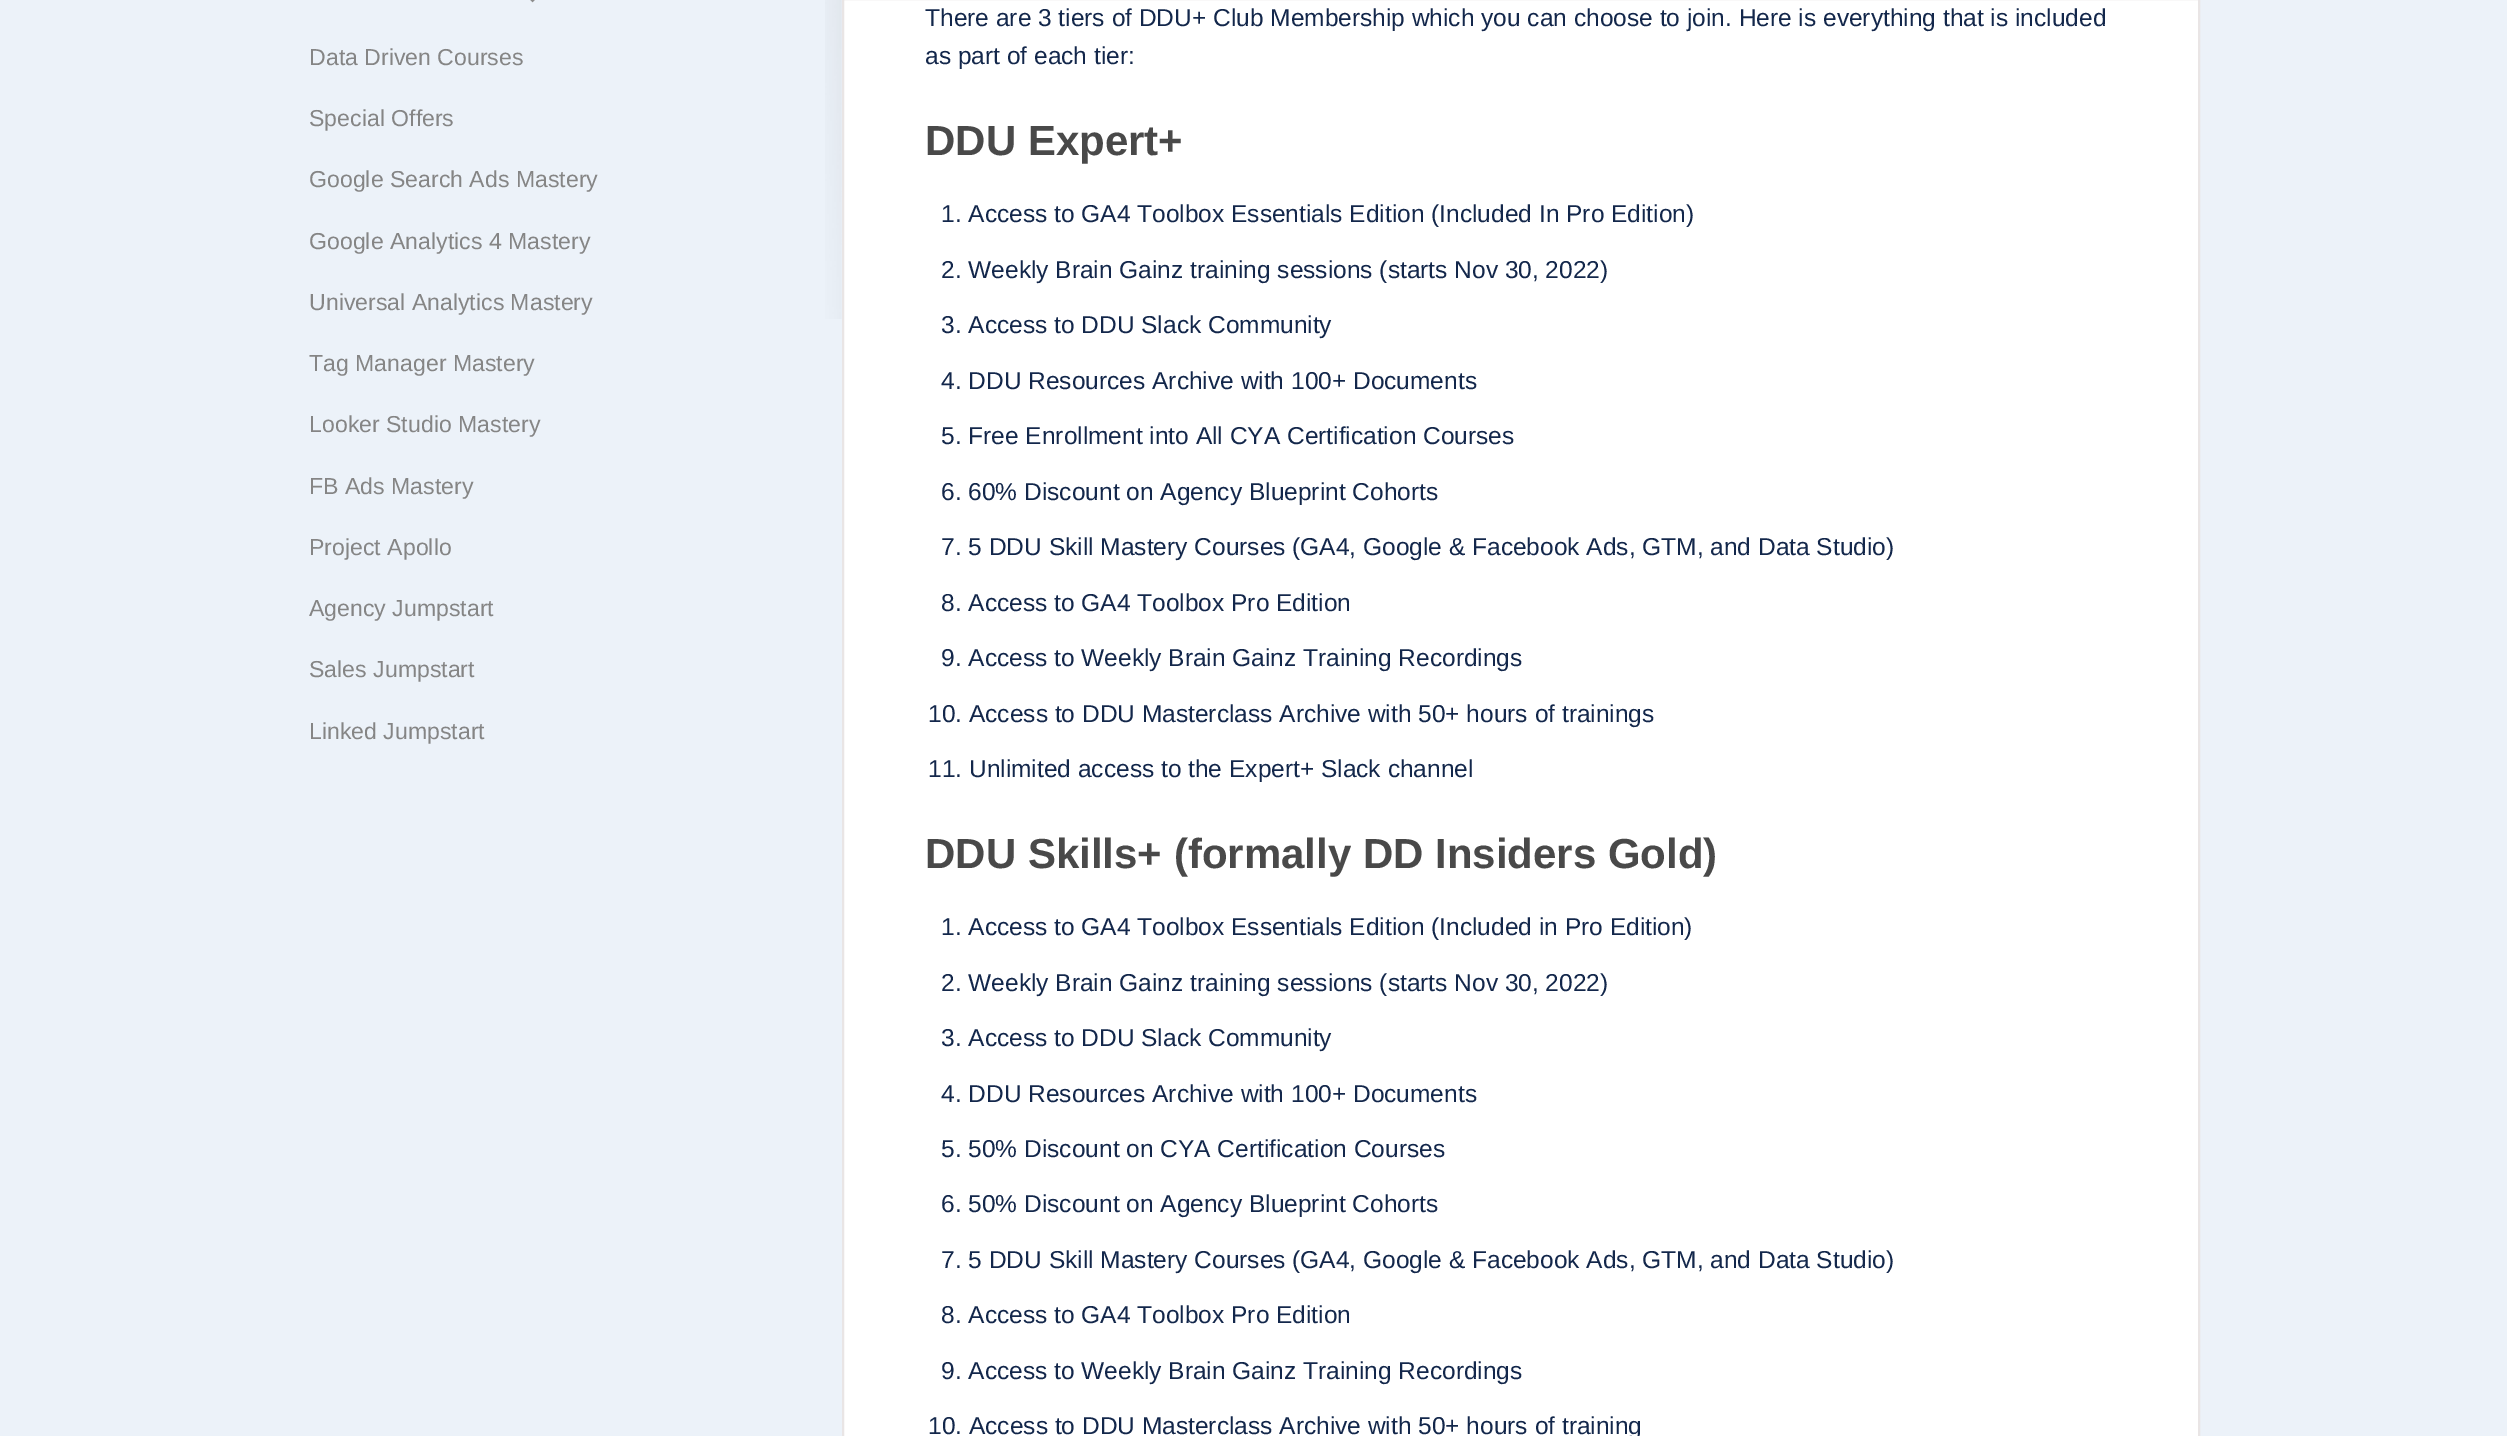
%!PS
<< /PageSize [2507 1436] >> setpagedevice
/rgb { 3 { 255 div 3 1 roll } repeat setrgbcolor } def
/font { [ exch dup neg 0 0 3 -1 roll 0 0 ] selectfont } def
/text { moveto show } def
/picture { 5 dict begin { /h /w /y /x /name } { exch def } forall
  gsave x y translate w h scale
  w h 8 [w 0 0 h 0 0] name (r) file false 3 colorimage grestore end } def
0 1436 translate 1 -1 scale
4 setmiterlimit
236 242 249 rgb
0 0 2507 1436 rectfill
(img_01.rgb) 530 0 5 3 picture
(img_02.rgb) 825 0 17 319 picture
255 255 255 rgb
843 -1 moveto 1356 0 rlineto 0 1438 rlineto -1356 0 rlineto closepath gsave fill grestore
233 229 229 rgb
2 setlinewidth
stroke
/LiberationSans-Regular 23.1 font
133 133 133 rgb
(Data Driven Courses) 309 65 text
(Special Offers) 309 126 text
(Google Search Ads Mastery) 309 187 text
(Google Analytics 4 Mastery) 309 249 text
(Universal Analytics Mastery) 309 310 text
(Tag Manager Mastery) 309 371 text
(Looker Studio Mastery) 309 432 text
(FB Ads Mastery) 309 494 text
(Project Apollo) 309 555 text
(Agency Jumpstart) 309 616 text
(Sales Jumpstart) 309 677 text
(Linked Jumpstart) 309 739 text
/LiberationSans-Regular 24.5 font
19 39 75 rgb
(There are 3 tiers of DDU+ Club Membership which you can choose to join. Here is everything that is included) 925 26 text
(as part of each tier:) 925 64 text
/LiberationSans-Bold 42 font
73 73 73 rgb
(DDU Expert+) 925 155 text
/LiberationSans-Regular 24.5 font
19 39 75 rgb
(1. Access to GA4 Toolbox Essentials Edition \(Included In Pro Edition\)) 941 222 text
(2. Weekly Brain Gainz training sessions \(starts Nov 30, 2022\)) 941 278 text
(3. Access to DDU Slack Community) 941 333 text
(4. DDU Resources Archive with 100+ Documents) 941 389 text
(5. Free Enrollment into All CYA Certification Courses) 941 444 text
(6. 60% Discount on Agency Blueprint Cohorts) 941 500 text
(7. 5 DDU Skill Mastery Courses \(GA4, Google & Facebook Ads, GTM, and Data Studio\)) 941 555 text
(8. Access to GA4 Toolbox Pro Edition) 941 611 text
(9. Access to Weekly Brain Gainz Training Recordings) 941 666 text
(10. Access to DDU Masterclass Archive with 50+ hours of trainings) 928 722 text
(11. Unlimited access to the Expert+ Slack channel) 928 777 text
/LiberationSans-Bold 42 font
73 73 73 rgb
(DDU Skills+ \(formally DD Insiders Gold\)) 925 868 text
/LiberationSans-Regular 24.5 font
19 39 75 rgb
(1. Access to GA4 Toolbox Essentials Edition \(Included in Pro Edition\)) 941 935 text
(2. Weekly Brain Gainz training sessions \(starts Nov 30, 2022\)) 941 991 text
(3. Access to DDU Slack Community) 941 1046 text
(4. DDU Resources Archive with 100+ Documents) 941 1102 text
(5. 50% Discount on CYA Certification Courses) 941 1157 text
(6. 50% Discount on Agency Blueprint Cohorts) 941 1212 text
(7. 5 DDU Skill Mastery Courses \(GA4, Google & Facebook Ads, GTM, and Data Studio\)) 941 1268 text
(8. Access to GA4 Toolbox Pro Edition) 941 1323 text
(9. Access to Weekly Brain Gainz Training Recordings) 941 1379 text
(10. Access to DDU Masterclass Archive with 50+ hours of training) 928 1434 text
showpage
